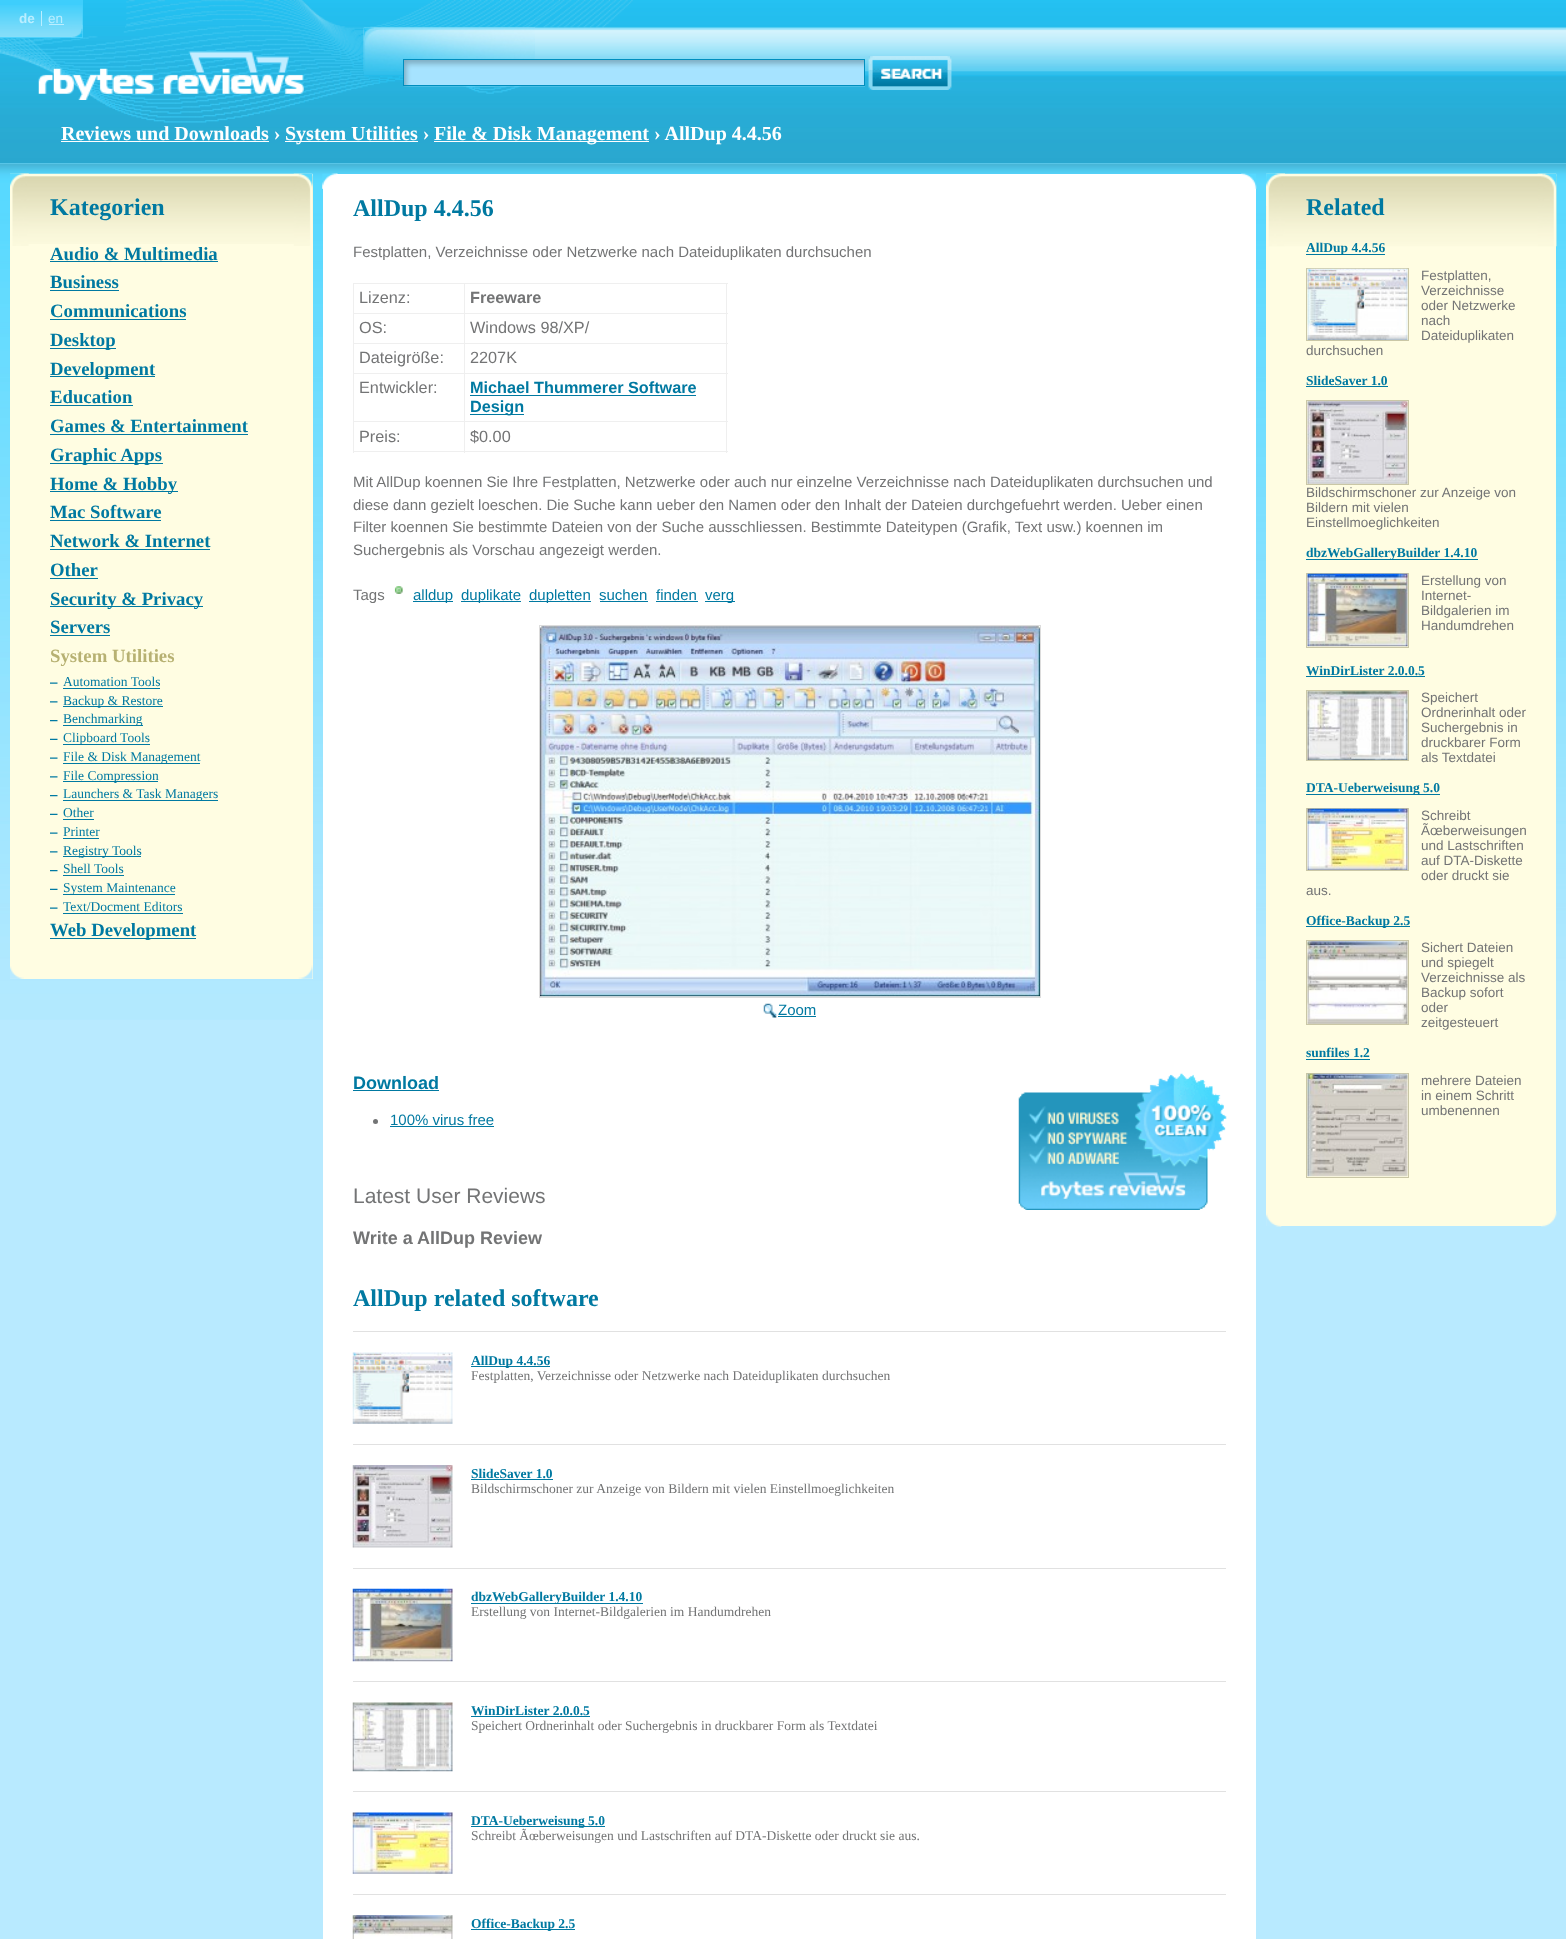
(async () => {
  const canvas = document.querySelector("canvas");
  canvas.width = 1566;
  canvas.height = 1939;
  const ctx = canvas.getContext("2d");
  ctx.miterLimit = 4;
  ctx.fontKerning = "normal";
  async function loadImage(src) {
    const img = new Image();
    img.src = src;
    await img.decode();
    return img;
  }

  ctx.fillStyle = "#ffffff";
  ctx.fillRect(0, 0, 1566, 1939);
  ctx.drawImage(await loadImage("img/1.png"), 0, 0, 1566, 164);
  ctx.drawImage(await loadImage("img/2.png"), 0, 0, 633, 123);
  ctx.fillStyle = "#3ecefc";
  ctx.fillRect(0, 0, 83, 38);
  ctx.drawImage(await loadImage("img/3.png"), 0, 5, 83, 33);
  ctx.drawImage(await loadImage("img/4.png"), 71, 25, 12, 13);
  ctx.fillStyle = "#baeeff";
  ctx.fillRect(41, 11, 1, 15);
  ctx.fillRect(49, 24, 15, 1);
  ctx.drawImage(await loadImage("img/5.png"), 38, 51, 266, 49);
  ctx.drawImage(await loadImage("img/6.png"), 363, 27, 1203, 50);
  ctx.drawImage(await loadImage("img/7.png"), 363, 27, 172, 45);
  ctx.drawImage(await loadImage("img/8.png"), 403, 60, 462, 27);
  ctx.strokeStyle = "#008ebe";
  ctx.strokeRect(403.5, 59.5, 461, 26);
  ctx.drawImage(await loadImage("img/9.png"), 868, 56, 84, 34);
  ctx.drawImage(await loadImage("img/10.png"), 868, 56, 84, 32);
  for (const [x, y, w, h, color] of [
    [61, 141, 208, 1, "#ffffff"],
    [285, 141, 133, 1, "#ffffff"],
    [434, 141, 215, 1, "#ffffff"],
    [0, 1020, 1566, 919, "#b8eaff"],
  ]) {
    ctx.fillStyle = color;
    ctx.fillRect(x, y, w, h);
  }
  ctx.drawImage(await loadImage("img/11.png"), 0, 163, 1566, 857);
  ctx.fillStyle = "#fffde2";
  ctx.fillRect(10, 174, 303, 805);
  ctx.drawImage(await loadImage("img/12.png"), 10, 173, 303, 71);
  ctx.drawImage(await loadImage("img/13.png"), 10, 173, 303, 73);
  ctx.drawImage(await loadImage("img/14.png"), 10, 173, 19, 1);
  for (const [x, y, w, h, color] of [
    [50, 261, 168, 1, "#0079a1"],
    [50, 290, 69, 1, "#0079a1"],
    [50, 319, 136, 1, "#0079a1"],
    [50, 348, 66, 1, "#0079a1"],
    [50, 376, 105, 1, "#0079a1"],
    [50, 405, 83, 1, "#0079a1"],
    [50, 434, 198, 1, "#0079a1"],
    [50, 463, 113, 1, "#0079a1"],
    [50, 491, 128, 1, "#0079a1"],
    [50, 520, 111, 1, "#0079a1"],
    [50, 549, 160, 1, "#0079a1"],
    [50, 578, 48, 1, "#0079a1"],
    [50, 606, 153, 1, "#0079a1"],
    [50, 635, 60, 1, "#0079a1"],
  ]) {
    ctx.fillStyle = color;
    ctx.fillRect(x, y, w, h);
  }
  ctx.drawImage(await loadImage("img/15.png"), 50, 682, 8, 2);
  ctx.fillStyle = "#007aa2";
  ctx.fillRect(63, 688, 97, 1);
  ctx.drawImage(await loadImage("img/16.png"), 50, 701, 8, 2);
  ctx.fillRect(63, 706, 100, 1);
  ctx.drawImage(await loadImage("img/17.png"), 50, 720, 8, 2);
  ctx.fillRect(63, 725, 80, 1);
  ctx.drawImage(await loadImage("img/18.png"), 50, 738, 8, 2);
  ctx.fillRect(63, 744, 87, 1);
  ctx.drawImage(await loadImage("img/15.png"), 50, 757, 8, 2);
  ctx.fillRect(63, 763, 137, 1);
  ctx.drawImage(await loadImage("img/16.png"), 50, 776, 8, 2);
  ctx.fillRect(63, 781, 95, 1);
  ctx.drawImage(await loadImage("img/17.png"), 50, 795, 8, 2);
  ctx.fillRect(63, 800, 155, 1);
  ctx.drawImage(await loadImage("img/18.png"), 50, 813, 8, 2);
  ctx.fillRect(63, 819, 31, 1);
  ctx.drawImage(await loadImage("img/15.png"), 50, 832, 8, 2);
  ctx.fillRect(63, 838, 36, 1);
  ctx.drawImage(await loadImage("img/16.png"), 50, 851, 8, 2);
  ctx.fillRect(63, 856, 78, 1);
  ctx.drawImage(await loadImage("img/17.png"), 50, 870, 8, 2);
  ctx.fillRect(63, 875, 61, 1);
  ctx.drawImage(await loadImage("img/18.png"), 50, 888, 8, 2);
  ctx.fillRect(63, 894, 112, 1);
  ctx.drawImage(await loadImage("img/15.png"), 50, 907, 8, 2);
  ctx.fillRect(63, 913, 120, 1);
  ctx.fillStyle = "#0079a1";
  ctx.fillRect(50, 938, 146, 1);
  ctx.drawImage(await loadImage("img/19.png"), 10, 965, 303, 14);
  ctx.drawImage(await loadImage("img/20.png"), 10, 978, 12, 1);
  ctx.fillStyle = "#ffffff";
  ctx.fillRect(323, 174, 933, 1765);
  ctx.drawImage(await loadImage("img/21.png"), 322, 173, 935, 16);
  ctx.drawImage(await loadImage("img/22.png"), 322, 173, 16, 16);
  for (const [x, y, w, h, color] of [
    [464, 283, 264, 1, "#efefef"],
    [464, 313, 264, 1, "#efefef"],
    [464, 343, 264, 1, "#efefef"],
    [464, 373, 264, 1, "#efefef"],
    [464, 421, 264, 1, "#efefef"],
    [726, 421, 1, 32, "#efefef"],
    [464, 451, 264, 1, "#efefef"],
    [464, 421, 1, 32, "#efefef"],
    [353, 421, 112, 1, "#efefef"],
    [464, 373, 1, 50, "#efefef"],
    [353, 373, 112, 1, "#efefef"],
    [464, 343, 1, 31, "#efefef"],
    [353, 343, 112, 1, "#efefef"],
    [464, 313, 1, 31, "#efefef"],
    [353, 313, 112, 1, "#efefef"],
    [464, 283, 1, 31, "#efefef"],
    [353, 283, 112, 1, "#efefef"],
    [353, 451, 112, 1, "#efefef"],
    [353, 421, 1, 32, "#efefef"],
    [353, 373, 1, 50, "#efefef"],
    [353, 343, 1, 31, "#efefef"],
    [353, 313, 1, 31, "#efefef"],
    [353, 283, 1, 31, "#efefef"],
    [726, 373, 1, 50, "#efefef"],
    [726, 343, 1, 31, "#efefef"],
    [726, 313, 1, 31, "#efefef"],
    [726, 283, 1, 31, "#efefef"],
    [470, 395, 226, 1, "#0079a1"],
    [470, 414, 54, 1, "#0079a1"],
  ]) {
    ctx.fillStyle = color;
    ctx.fillRect(x, y, w, h);
  }
  ctx.drawImage(await loadImage("img/23.png"), 394, 586, 9, 8);
  for (const [x, y, w, h, color] of [
    [413, 601, 40, 1, "#0079a1"],
    [461, 601, 60, 1, "#0079a1"],
    [529, 601, 62, 1, "#0079a1"],
    [600, 601, 48, 1, "#0079a1"],
    [656, 601, 42, 1, "#0079a1"],
    [705, 601, 30, 1, "#0079a1"],
  ]) {
    ctx.fillStyle = color;
    ctx.fillRect(x, y, w, h);
  }
  ctx.strokeStyle = "#dcdcdc";
  ctx.strokeRect(539.5, 625.5, 501, 372);
  ctx.drawImage(await loadImage("img/24.png"), 540, 626, 500, 371);
  ctx.drawImage(await loadImage("img/25.png"), 763, 1003, 14, 15);
  ctx.fillRect(778, 1016, 38, 1);
  ctx.fillRect(353, 1090, 86, 1);
  ctx.drawImage(await loadImage("img/26.png"), 1018, 1073, 209, 137);
  ctx.fillStyle = "#737475";
  ctx.beginPath();
  ctx.arc(375.5, 1121.5, 2.5, 0, Math.PI * 2);
  ctx.fill();
  ctx.fillStyle = "#0079a1";
  ctx.fillRect(390, 1126, 104, 1);
  ctx.fillStyle = "#e1e1e1";
  ctx.fillRect(353, 1331, 873, 1);
  ctx.drawImage(await loadImage("img/27.png"), 352, 1352, 101, 72);
  ctx.fillStyle = "#0079a1";
  ctx.fillRect(471, 1366, 79, 1);
  ctx.fillStyle = "#e1e1e1";
  ctx.fillRect(353, 1444, 873, 1);
  ctx.drawImage(await loadImage("img/28.png"), 352, 1465, 101, 83);
  ctx.fillStyle = "#0079a1";
  ctx.fillRect(471, 1479, 82, 1);
  ctx.fillStyle = "#e1e1e1";
  ctx.fillRect(353, 1568, 873, 1);
  ctx.drawImage(await loadImage("img/29.png"), 352, 1588, 101, 74);
  ctx.fillStyle = "#0079a1";
  ctx.fillRect(471, 1603, 172, 1);
  ctx.fillStyle = "#e1e1e1";
  ctx.fillRect(353, 1681, 873, 1);
  ctx.drawImage(await loadImage("img/30.png"), 352, 1702, 101, 70);
  ctx.fillStyle = "#0079a1";
  ctx.fillRect(471, 1716, 119, 1);
  ctx.fillStyle = "#e1e1e1";
  ctx.fillRect(353, 1791, 873, 1);
  ctx.drawImage(await loadImage("img/31.png"), 352, 1812, 101, 62);
  ctx.fillStyle = "#0079a1";
  ctx.fillRect(471, 1826, 134, 1);
  ctx.fillStyle = "#e1e1e1";
  ctx.fillRect(353, 1894, 873, 1);
  ctx.drawImage(await loadImage("img/32.png"), 352, 1915, 101, 24);
  ctx.fillStyle = "#0079a1";
  ctx.fillRect(471, 1929, 104, 1);
  ctx.fillStyle = "#fffde2";
  ctx.fillRect(1266, 174, 290, 1052);
  ctx.drawImage(await loadImage("img/33.png"), 1266, 173, 291, 74);
  ctx.drawImage(await loadImage("img/34.png"), 1266, 173, 291, 74);
  ctx.drawImage(await loadImage("img/35.png"), 1266, 173, 19, 33);
  ctx.fillStyle = "#0079a1";
  ctx.fillRect(1306, 254, 79, 1);
  ctx.strokeStyle = "#cac7a6";
  ctx.strokeRect(1306.5, 268.5, 102, 72);
  ctx.drawImage(await loadImage("img/36.png"), 1307, 268, 101, 72);
  ctx.fillRect(1306, 386, 82, 1);
  ctx.strokeRect(1306.5, 400.5, 102, 84);
  ctx.drawImage(await loadImage("img/37.png"), 1307, 401, 101, 83);
  ctx.fillRect(1306, 559, 172, 1);
  ctx.strokeRect(1306.5, 573.5, 102, 74);
  ctx.drawImage(await loadImage("img/38.png"), 1307, 573, 101, 74);
  ctx.fillRect(1306, 676, 119, 1);
  ctx.strokeRect(1306.5, 690.5, 102, 70);
  ctx.drawImage(await loadImage("img/39.png"), 1307, 691, 101, 69);
  ctx.fillRect(1306, 794, 134, 1);
  ctx.strokeRect(1306.5, 808.5, 102, 62);
  ctx.drawImage(await loadImage("img/40.png"), 1307, 808, 101, 62);
  ctx.fillRect(1306, 926, 104, 1);
  ctx.strokeRect(1306.5, 940.5, 102, 84);
  ctx.drawImage(await loadImage("img/41.png"), 1307, 941, 101, 83);
  ctx.fillRect(1306, 1059, 64, 1);
  ctx.strokeRect(1306.5, 1073.5, 102, 104);
  ctx.drawImage(await loadImage("img/42.png"), 1307, 1073, 101, 104);
  ctx.drawImage(await loadImage("img/43.png"), 1266, 1211, 291, 16);
  ctx.drawImage(await loadImage("img/44.png"), 1266, 1215, 16, 12);
  ctx.font = "bold 13.5px Liberation Sans";
  ctx.fillStyle = "#baeeff";
  ctx.fillText("de", 19, 23);
  ctx.font = "13.5px Liberation Sans";
  ctx.fillText("en", 48, 23);
  ctx.font = "bold 20px Liberation Serif";
  ctx.fillStyle = "#ffffff";
  for (const [text, x, y] of [
    ["Reviews und Downloads ›", 61, 140],
    ["System Utilities ›", 285, 140],
    ["File & Disk Management › AllDup 4.4.56", 434, 140],
  ]) {
    ctx.fillText(text, x, y);
  }
  ctx.font = "bold 24px Liberation Serif";
  ctx.fillStyle = "#0079a1";
  ctx.fillText("Kategorien", 50, 215);
  ctx.font = "bold 18.75px Liberation Serif";
  for (const [text, x, y] of [
    ["Audio & Multimedia", 50, 260],
    ["Business", 50, 288],
    ["Communications", 50, 317],
    ["Desktop", 50, 346],
    ["Development", 50, 375],
    ["Education", 50, 403],
    ["Games & Entertainment", 50, 432],
    ["Graphic Apps", 50, 461],
    ["Home & Hobby", 50, 490],
    ["Mac Software", 50, 518],
    ["Network & Internet", 50, 547],
    ["Other", 50, 576],
    ["Security & Privacy", 50, 605],
    ["Servers", 50, 633],
  ]) {
    ctx.fillText(text, x, y);
  }
  ctx.fillStyle = "#b7b172";
  ctx.fillText("System Utilities", 50, 662);
  ctx.font = "13.5px Liberation Serif";
  ctx.fillStyle = "#0079a1";
  for (const [text, x, y] of [
    ["Automation Tools", 63, 686],
    ["Backup & Restore", 63, 705],
    ["Benchmarking", 63, 723],
    ["Clipboard Tools", 63, 742],
    ["File & Disk Management", 63, 761],
    ["File Compression", 63, 780],
    ["Launchers & Task Managers", 63, 798],
    ["Other", 63, 817],
    ["Printer", 63, 836],
    ["Registry Tools", 63, 855],
    ["Shell Tools", 63, 873],
    ["System Maintenance", 63, 892],
    ["Text/Docment Editors", 63, 911],
  ]) {
    ctx.fillText(text, x, y);
  }
  ctx.font = "bold 18.75px Liberation Serif";
  ctx.fillText("Web Development", 50, 936);
  ctx.font = "bold 24px Liberation Serif";
  ctx.fillText("AllDup 4.4.56", 353, 216);
  ctx.font = "15px Liberation Sans";
  ctx.fillStyle = "#737475";
  ctx.fillText("Festplatten, Verzeichnisse oder Netzwerke nach Dateiduplikaten durchsuchen", 353, 257);
  ctx.font = "16.25px Liberation Sans";
  ctx.fillText("Lizenz:", 359, 303);
  ctx.font = "bold 16.25px Liberation Sans";
  ctx.fillText("Freeware", 470, 303);
  ctx.font = "16.25px Liberation Sans";
  for (const [text, x, y] of [
    ["OS:", 359, 333],
    ["Windows 98/XP/", 470, 333],
    ["Dateigröße:", 359, 363],
    ["2207K", 470, 363],
    ["Entwickler:", 359, 393],
  ]) {
    ctx.fillText(text, x, y);
  }
  ctx.font = "bold 16.25px Liberation Sans";
  ctx.fillStyle = "#0079a1";
  ctx.fillText("Michael Thummerer Software", 470, 393);
  ctx.fillText("Design", 470, 412);
  ctx.font = "16.25px Liberation Sans";
  ctx.fillStyle = "#737475";
  ctx.fillText("Preis:", 359, 442);
  ctx.fillText("$0.00", 470, 442);
  ctx.font = "15px Liberation Sans";
  for (const [text, x, y] of [
    ["Mit AllDup koennen Sie Ihre Festplatten, Netzwerke oder auch nur einzelne Verzeichnisse nach Dateiduplikaten durchsuchen und", 353, 487],
    ["diese dann gezielt loeschen. Die Suche kann ueber den Namen oder den Inhalt der Dateien durchgefuehrt werden. Ueber einen", 353, 510],
    ["Filter koennen Sie bestimmte Dateien von der Suche ausschliessen. Bestimmte Dateitypen (Grafik, Text usw.) koennen im", 353, 532],
    ["Suchergebnis als Vorschau angezeigt werden.", 353, 555],
    ["Tags", 353, 600],
  ]) {
    ctx.fillText(text, x, y);
  }
  ctx.fillStyle = "#0079a1";
  for (const [text, x, y] of [
    ["alldup", 413, 600],
    ["duplikate", 461, 600],
    ["dupletten", 529, 600],
    ["suchen", 599, 600],
    ["finden", 656, 600],
    ["verg", 705, 600],
    ["Zoom", 778, 1015],
  ]) {
    ctx.fillText(text, x, y);
  }
  ctx.font = "bold 18px Liberation Sans";
  ctx.fillText("Download", 353, 1089);
  ctx.font = "15px Liberation Sans";
  ctx.fillText("100% virus free", 390, 1125);
  ctx.font = "21px Liberation Sans";
  ctx.fillStyle = "#737475";
  ctx.fillText("Latest User Reviews", 353, 1203);
  ctx.font = "bold 18px Liberation Sans";
  ctx.fillText("Write a AllDup Review", 353, 1244);
  ctx.font = "bold 24px Liberation Serif";
  ctx.fillStyle = "#0079a1";
  ctx.fillText("AllDup related software", 353, 1306);
  ctx.font = "bold 13.5px Liberation Serif";
  ctx.fillText("AllDup 4.4.56", 471, 1365);
  ctx.font = "13.5px Liberation Serif";
  ctx.fillStyle = "#737475";
  ctx.fillText("Festplatten, Verzeichnisse oder Netzwerke nach Dateiduplikaten durchsuchen", 471, 1380);
  ctx.font = "bold 13.5px Liberation Serif";
  ctx.fillStyle = "#0079a1";
  ctx.fillText("SlideSaver 1.0", 471, 1478);
  ctx.font = "13.5px Liberation Serif";
  ctx.fillStyle = "#737475";
  ctx.fillText("Bildschirmschoner zur Anzeige von Bildern mit vielen Einstellmoeglichkeiten", 471, 1493);
  ctx.font = "bold 13.5px Liberation Serif";
  ctx.fillStyle = "#0079a1";
  ctx.fillText("dbzWebGalleryBuilder 1.4.10", 471, 1601);
  ctx.font = "13.5px Liberation Serif";
  ctx.fillStyle = "#737475";
  ctx.fillText("Erstellung von Internet-Bildgalerien im Handumdrehen", 471, 1616);
  ctx.font = "bold 13.5px Liberation Serif";
  ctx.fillStyle = "#0079a1";
  ctx.fillText("WinDirLister 2.0.0.5", 471, 1715);
  ctx.font = "13.5px Liberation Serif";
  ctx.fillStyle = "#737475";
  ctx.fillText("Speichert Ordnerinhalt oder Suchergebnis in druckbarer Form als Textdatei", 471, 1730);
  ctx.font = "bold 13.5px Liberation Serif";
  ctx.fillStyle = "#0079a1";
  ctx.fillText("DTA-Ueberweisung 5.0", 471, 1825);
  ctx.font = "13.5px Liberation Serif";
  ctx.fillStyle = "#737475";
  ctx.fillText("Schreibt Ãœberweisungen und Lastschriften auf DTA-Diskette oder druckt sie aus.", 471, 1840);
  ctx.font = "bold 13.5px Liberation Serif";
  ctx.fillStyle = "#0079a1";
  ctx.fillText("Office-Backup 2.5", 471, 1928);
  ctx.font = "bold 24px Liberation Serif";
  ctx.fillText("Related", 1306, 215);
  ctx.font = "bold 13.5px Liberation Serif";
  ctx.fillText("AllDup 4.4.56", 1306, 252);
  ctx.font = "13.5px Liberation Sans";
  ctx.fillStyle = "#737475";
  for (const [text, x, y] of [
    ["Festplatten,", 1421, 280],
    ["Verzeichnisse", 1421, 295],
    ["oder Netzwerke", 1421, 310],
    ["nach", 1421, 325],
    ["Dateiduplikaten", 1421, 340],
    ["durchsuchen", 1306, 355],
  ]) {
    ctx.fillText(text, x, y);
  }
  ctx.font = "bold 13.5px Liberation Serif";
  ctx.fillStyle = "#0079a1";
  ctx.fillText("SlideSaver 1.0", 1306, 385);
  ctx.font = "13.5px Liberation Sans";
  ctx.fillStyle = "#737475";
  for (const [text, x, y] of [
    ["Bildschirmschoner zur Anzeige von", 1306, 497],
    ["Bildern mit vielen", 1306, 512],
    ["Einstellmoeglichkeiten", 1306, 527],
  ]) {
    ctx.fillText(text, x, y);
  }
  ctx.font = "bold 13.5px Liberation Serif";
  ctx.fillStyle = "#0079a1";
  ctx.fillText("dbzWebGalleryBuilder 1.4.10", 1306, 557);
  ctx.font = "13.5px Liberation Sans";
  ctx.fillStyle = "#737475";
  for (const [text, x, y] of [
    ["Erstellung von", 1421, 585],
    ["Internet-", 1421, 600],
    ["Bildgalerien im", 1421, 615],
    ["Handumdrehen", 1421, 630],
  ]) {
    ctx.fillText(text, x, y);
  }
  ctx.font = "bold 13.5px Liberation Serif";
  ctx.fillStyle = "#0079a1";
  ctx.fillText("WinDirLister 2.0.0.5", 1306, 675);
  ctx.font = "13.5px Liberation Sans";
  ctx.fillStyle = "#737475";
  for (const [text, x, y] of [
    ["Speichert", 1421, 702],
    ["Ordnerinhalt oder", 1421, 717],
    ["Suchergebnis in", 1421, 732],
    ["druckbarer Form", 1421, 747],
    ["als Textdatei", 1421, 762],
  ]) {
    ctx.fillText(text, x, y);
  }
  ctx.font = "bold 13.5px Liberation Serif";
  ctx.fillStyle = "#0079a1";
  ctx.fillText("DTA-Ueberweisung 5.0", 1306, 792);
  ctx.font = "13.5px Liberation Sans";
  ctx.fillStyle = "#737475";
  for (const [text, x, y] of [
    ["Schreibt", 1421, 820],
    ["Ãœberweisungen", 1421, 835],
    ["und Lastschriften", 1421, 850],
    ["auf DTA-Diskette", 1421, 865],
    ["oder druckt sie", 1421, 880],
    ["aus.", 1306, 895],
  ]) {
    ctx.fillText(text, x, y);
  }
  ctx.font = "bold 13.5px Liberation Serif";
  ctx.fillStyle = "#0079a1";
  ctx.fillText("Office-Backup 2.5", 1306, 925);
  ctx.font = "13.5px Liberation Sans";
  ctx.fillStyle = "#737475";
  for (const [text, x, y] of [
    ["Sichert Dateien", 1421, 952],
    ["und spiegelt", 1421, 967],
    ["Verzeichnisse als", 1421, 982],
    ["Backup sofort", 1421, 997],
    ["oder", 1421, 1012],
    ["zeitgesteuert", 1421, 1027],
  ]) {
    ctx.fillText(text, x, y);
  }
  ctx.font = "bold 13.5px Liberation Serif";
  ctx.fillStyle = "#0079a1";
  ctx.fillText("sunfiles 1.2", 1306, 1057);
  ctx.font = "13.5px Liberation Sans";
  ctx.fillStyle = "#737475";
  for (const [text, x, y] of [
    ["mehrere Dateien", 1421, 1085],
    ["in einem Schritt", 1421, 1100],
    ["umbenennen", 1421, 1115],
  ]) {
    ctx.fillText(text, x, y);
  }
})();
